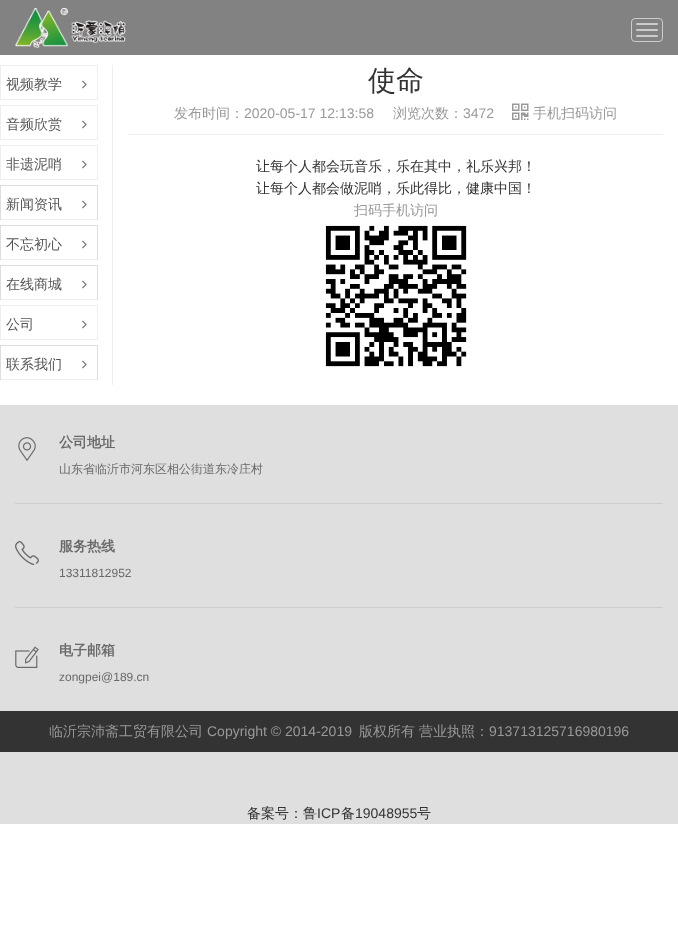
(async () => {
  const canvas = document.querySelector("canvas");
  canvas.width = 678;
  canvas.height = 927;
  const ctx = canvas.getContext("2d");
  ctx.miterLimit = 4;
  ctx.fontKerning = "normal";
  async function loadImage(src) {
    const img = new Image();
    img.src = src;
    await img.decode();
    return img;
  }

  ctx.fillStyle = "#ffffff";
  ctx.fillRect(0, 0, 678, 927);
  ctx.fillStyle = "#828282";
  ctx.fillRect(0, 0, 678, 55);
  ctx.drawImage(await loadImage("img/1.png"), 15, 8, 111, 40);
  ctx.beginPath();
  ctx.roundRect(631.5, 18.5, 31, 23, 3.5);
  ctx.strokeStyle = "#cccccc";
  ctx.stroke();
  ctx.fillStyle = "#cccccc";
  ctx.beginPath();
  ctx.roundRect(636, 23, 22, 2, 1);
  ctx.fill();
  ctx.beginPath();
  ctx.roundRect(636, 29, 22, 2, 1);
  ctx.fill();
  ctx.beginPath();
  ctx.roundRect(636, 35, 22, 2, 1);
  ctx.fill();
  for (const [x, y, w, h, color] of [
    [0, 65, 98, 1, "#eeeeee"],
    [97, 65, 1, 35, "#eeeeee"],
    [0, 65, 1, 35, "#eeeeee"],
    [1, 99, 96, 1, "#eeeeee"],
  ]) {
    ctx.fillStyle = color;
    ctx.fillRect(x, y, w, h);
  }
  ctx.drawImage(await loadImage("img/2.png"), 82, 80, 5, 9);
  for (const [x, y, w, h, color] of [
    [0, 105, 98, 1, "#eeeeee"],
    [97, 105, 1, 35, "#eeeeee"],
    [0, 105, 1, 35, "#eeeeee"],
    [1, 139, 96, 1, "#eeeeee"],
  ]) {
    ctx.fillStyle = color;
    ctx.fillRect(x, y, w, h);
  }
  ctx.drawImage(await loadImage("img/2.png"), 82, 120, 5, 9);
  for (const [x, y, w, h, color] of [
    [0, 145, 98, 1, "#eeeeee"],
    [97, 145, 1, 35, "#eeeeee"],
    [0, 145, 1, 35, "#eeeeee"],
    [1, 179, 96, 1, "#eeeeee"],
  ]) {
    ctx.fillStyle = color;
    ctx.fillRect(x, y, w, h);
  }
  ctx.drawImage(await loadImage("img/2.png"), 82, 160, 5, 9);
  for (const [x, y, w, h, color] of [
    [0, 185, 98, 1, "#dedede"],
    [97, 185, 1, 35, "#dedede"],
    [0, 185, 1, 35, "#dedede"],
    [1, 219, 96, 1, "#eeeeee"],
  ]) {
    ctx.fillStyle = color;
    ctx.fillRect(x, y, w, h);
  }
  ctx.drawImage(await loadImage("img/2.png"), 82, 200, 5, 9);
  for (const [x, y, w, h, color] of [
    [0, 225, 98, 1, "#dedede"],
    [97, 225, 1, 35, "#dedede"],
    [0, 225, 1, 35, "#dedede"],
    [1, 259, 96, 1, "#eeeeee"],
  ]) {
    ctx.fillStyle = color;
    ctx.fillRect(x, y, w, h);
  }
  ctx.drawImage(await loadImage("img/2.png"), 82, 240, 5, 9);
  for (const [x, y, w, h, color] of [
    [0, 265, 98, 1, "#dedede"],
    [97, 265, 1, 35, "#dedede"],
    [0, 265, 1, 35, "#dedede"],
    [1, 299, 96, 1, "#eeeeee"],
  ]) {
    ctx.fillStyle = color;
    ctx.fillRect(x, y, w, h);
  }
  ctx.drawImage(await loadImage("img/2.png"), 82, 280, 5, 9);
  for (const [x, y, w, h, color] of [
    [0, 305, 98, 1, "#eeeeee"],
    [97, 305, 1, 35, "#eeeeee"],
    [0, 305, 1, 35, "#eeeeee"],
    [1, 339, 96, 1, "#eeeeee"],
  ]) {
    ctx.fillStyle = color;
    ctx.fillRect(x, y, w, h);
  }
  ctx.drawImage(await loadImage("img/2.png"), 82, 320, 5, 9);
  for (const [x, y, w, h, color] of [
    [0, 345, 98, 1, "#dedede"],
    [97, 345, 1, 35, "#dedede"],
    [0, 345, 1, 35, "#dedede"],
    [1, 379, 96, 1, "#eeeeee"],
  ]) {
    ctx.fillStyle = color;
    ctx.fillRect(x, y, w, h);
  }
  ctx.drawImage(await loadImage("img/2.png"), 82, 360, 5, 9);
  ctx.fillRect(112, 65, 1, 320);
  ctx.drawImage(await loadImage("img/3.png"), 512, 103, 17, 17);
  ctx.fillRect(128, 134, 535, 1);
  ctx.drawImage(await loadImage("img/4.png"), 325, 225, 142, 142);
  ctx.fillStyle = "#dfdfdf";
  ctx.fillRect(0, 405, 678, 419);
  ctx.fillStyle = "#cccccc";
  ctx.fillRect(15, 503, 648, 1);
  ctx.drawImage(await loadImage("img/5.png"), 18, 437, 18, 24);
  ctx.fillRect(15, 607, 648, 1);
  ctx.drawImage(await loadImage("img/6.png"), 15, 541, 24, 24);
  ctx.drawImage(await loadImage("img/7.png"), 15, 646, 24, 22);
  ctx.fillStyle = "#333333";
  ctx.fillRect(0, 711, 678, 41);
  ctx.font = "500 14px WenQuanYi Zen Hei";
  ctx.fillStyle = "#555555";
  for (const [text, x, y] of [
    ["视频教学", 6, 89],
    ["音频欣赏", 6, 129],
    ["非遗泥哨", 6, 169],
    ["新闻资讯", 6, 209],
    ["不忘初心", 6, 249],
    ["在线商城", 6, 289],
    ["公司", 6, 329],
    ["联系我们", 6, 369],
  ]) {
    ctx.fillText(text, x, y);
  }
  ctx.font = "500 28px WenQuanYi Zen Hei";
  ctx.fillStyle = "#333333";
  ctx.fillText("使命", 368, 90);
  ctx.font = "500 14px WenQuanYi Zen Hei";
  ctx.fillStyle = "#999999";
  ctx.fillText("发布时间：", 174, 118);
  ctx.font = "14px Liberation Sans";
  ctx.fillText("2020-05-17 12:13:58", 244, 118);
  ctx.font = "500 14px WenQuanYi Zen Hei";
  ctx.fillText("浏览次数：", 393, 118);
  ctx.font = "14px Liberation Sans";
  ctx.fillText("3472", 463, 118);
  ctx.font = "500 14px WenQuanYi Zen Hei";
  ctx.fillText("手机扫码访问", 533, 118);
  ctx.fillStyle = "#333333";
  ctx.fillText("让每个人都会玩音乐，乐在其中，礼乐兴邦！", 256, 171);
  ctx.fillText("让每个人都会做泥哨，乐此得比，健康中国！", 256, 193);
  ctx.fillStyle = "#999999";
  ctx.fillText("扫码手机访问", 354, 215);
  ctx.font = "bold 14px WenQuanYi Zen Hei";
  ctx.fillStyle = "#696969";
  ctx.fillText("公司地址", 59, 447);
  ctx.font = "500 12px WenQuanYi Zen Hei";
  ctx.fillText("山东省临沂市河东区相公街道东冷庄村", 59, 473);
  ctx.font = "bold 14px WenQuanYi Zen Hei";
  ctx.fillText("服务热线", 59, 551);
  ctx.font = "12px Liberation Sans";
  ctx.fillText("13311812952", 59, 577);
  ctx.font = "bold 14px WenQuanYi Zen Hei";
  ctx.fillText("电子邮箱", 59, 655);
  ctx.font = "12px Liberation Sans";
  ctx.fillText("zongpei@189.cn", 59, 681);
  ctx.font = "500 14px WenQuanYi Zen Hei";
  ctx.fillStyle = "#999999";
  ctx.fillText("临沂宗沛斋工贸有限公司", 49, 736);
  ctx.font = "14px Liberation Sans";
  ctx.fillText("Copyright © 2014-2019", 207, 736);
  ctx.font = "500 14px WenQuanYi Zen Hei";
  ctx.fillText("版权所有", 359, 736);
  ctx.fillText("营业执照：", 419, 736);
  ctx.font = "14px Liberation Sans";
  ctx.fillText("913713125716980196", 489, 736);
  ctx.font = "500 14px WenQuanYi Zen Hei";
  ctx.fillStyle = "#333333";
  ctx.fillText("备案号：鲁", 247, 818);
  ctx.font = "14px Liberation Sans";
  ctx.fillText("ICP", 317, 818);
  ctx.font = "500 14px WenQuanYi Zen Hei";
  ctx.fillText("备", 341, 818);
  ctx.font = "14px Liberation Sans";
  ctx.fillText("19048955", 355, 818);
  ctx.font = "500 14px WenQuanYi Zen Hei";
  ctx.fillText("号", 417, 818);
})();
